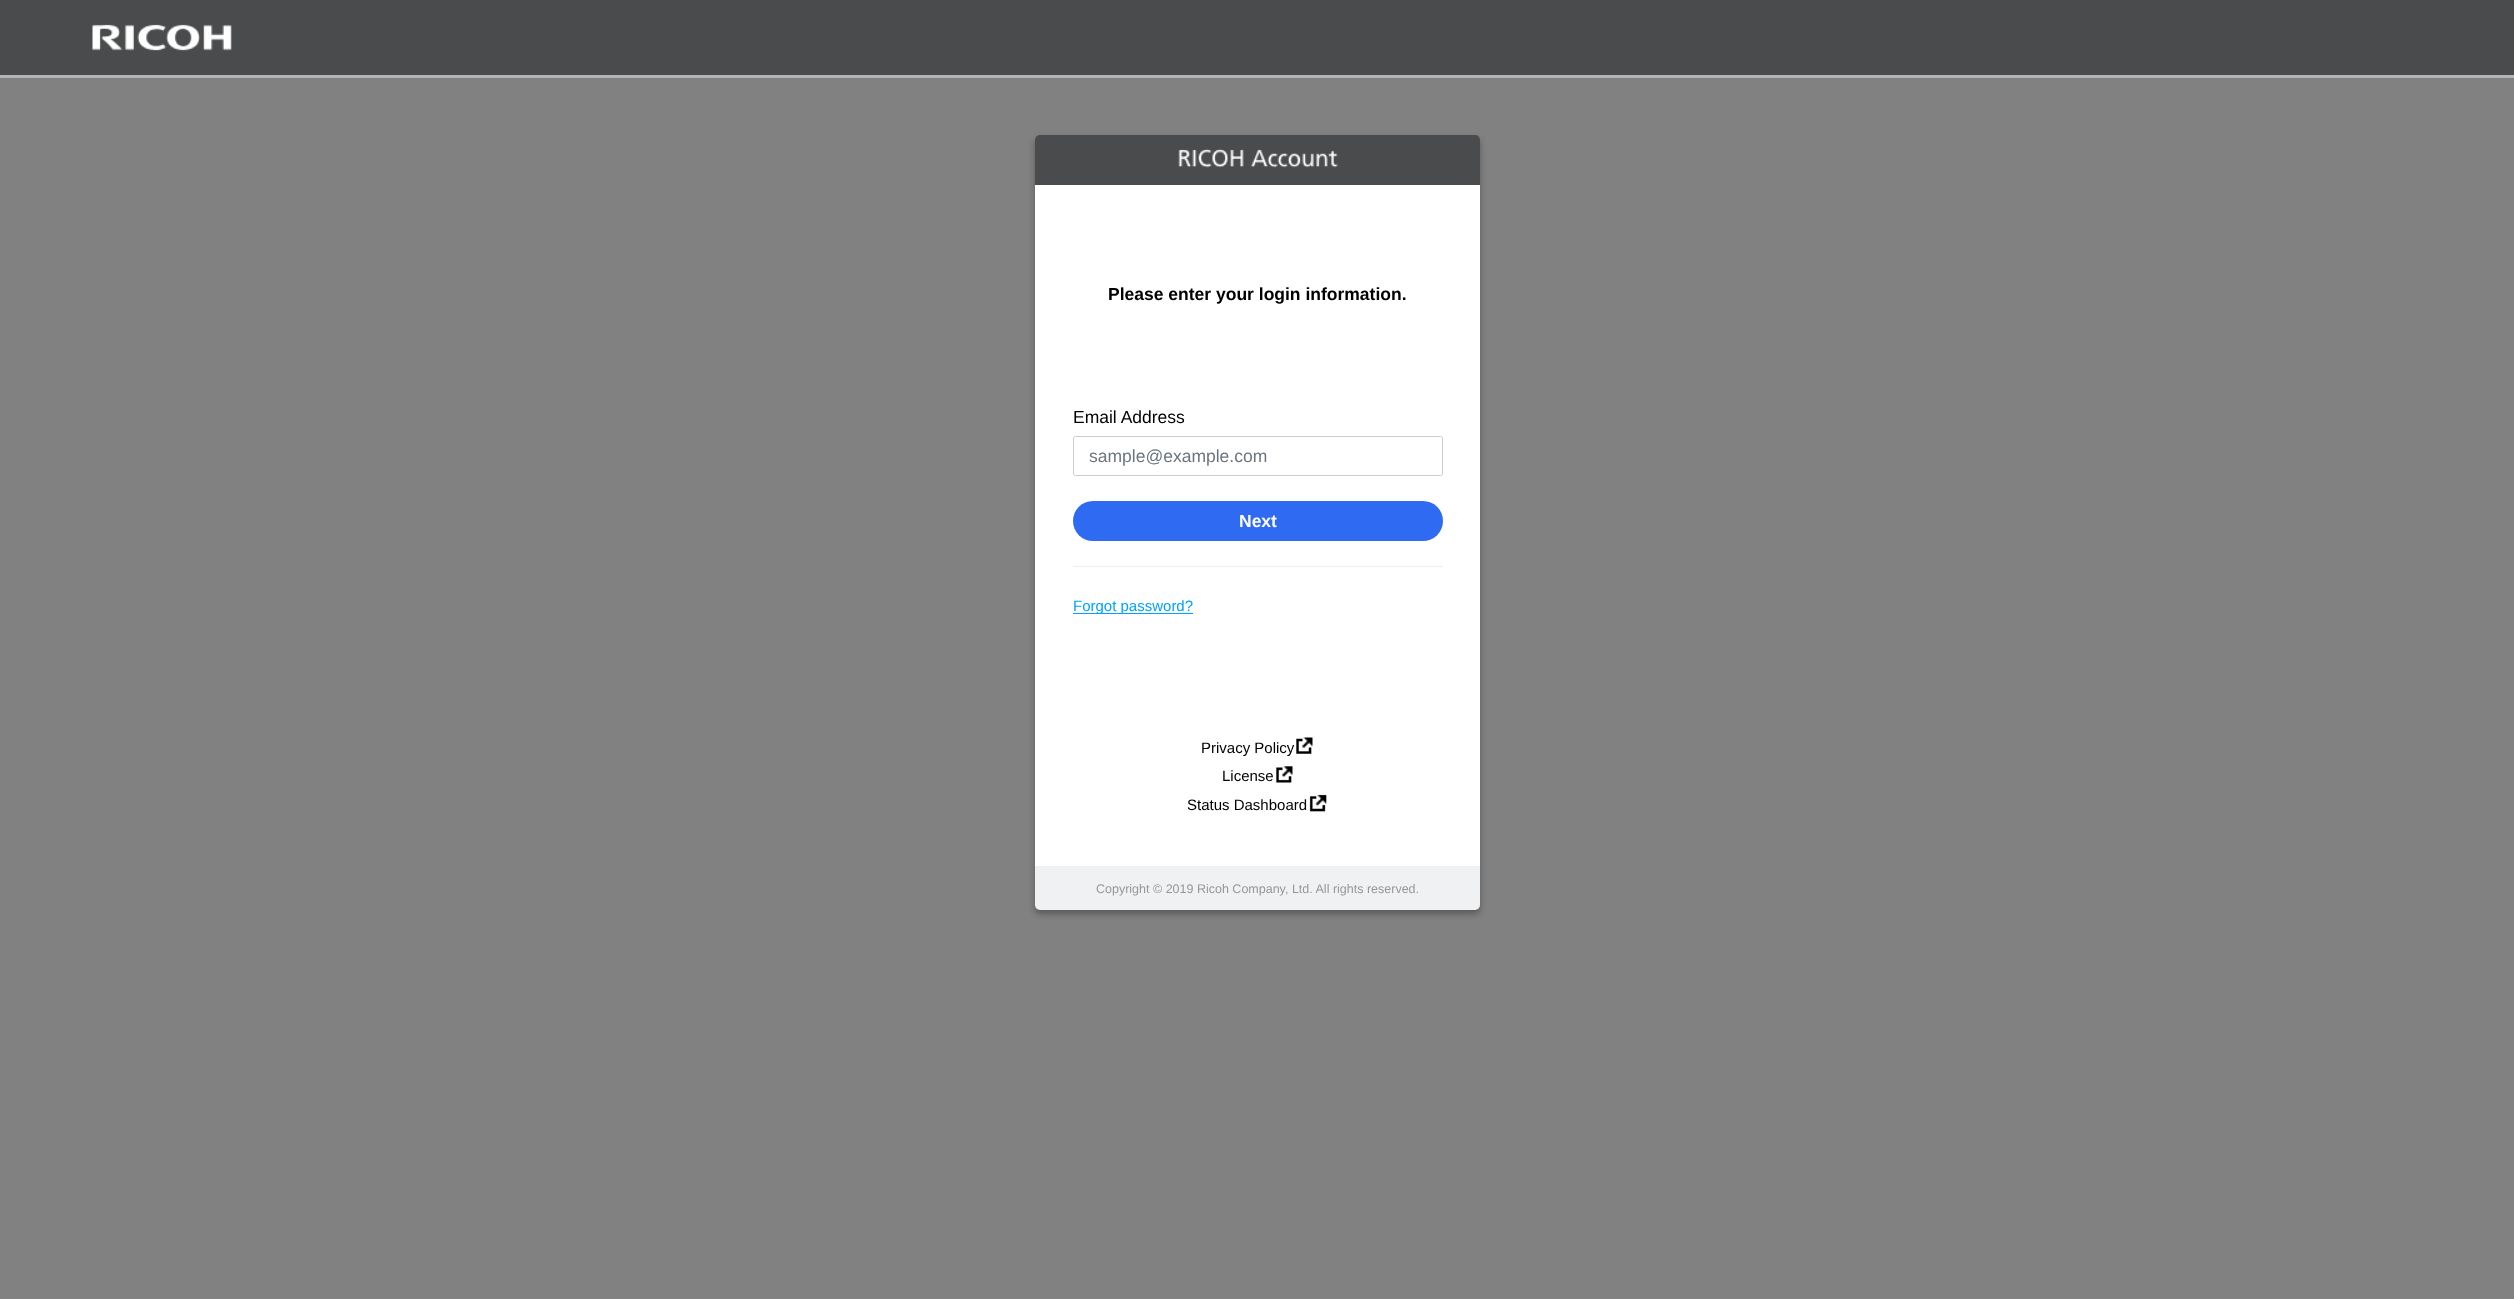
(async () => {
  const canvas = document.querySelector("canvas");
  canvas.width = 2514;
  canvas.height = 1299;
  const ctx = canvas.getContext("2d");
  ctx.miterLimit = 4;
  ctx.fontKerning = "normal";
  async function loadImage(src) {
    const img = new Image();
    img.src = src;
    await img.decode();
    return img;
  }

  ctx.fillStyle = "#818181";
  ctx.fillRect(0, 0, 2514, 1299);
  ctx.fillStyle = "#4a4b4c";
  ctx.fillRect(0, 0, 2514, 75);
  ctx.fillStyle = "#b5b5b5";
  ctx.fillRect(0, 75, 2514, 3);
  ctx.drawImage(await loadImage("img/1.png"), 92, 24, 140, 27);
  ctx.fillStyle = "rgba(0, 0, 0, 0.3)";
  ctx.filter = "blur(3px)";
  ctx.beginPath();
  ctx.roundRect(1035, 139, 445, 775, 5);
  ctx.fill();
  ctx.filter = "none";
  ctx.fillStyle = "#4a4b4c";
  ctx.beginPath();
  ctx.roundRect(1035, 135, 445, 50, [5, 5, 0, 0]);
  ctx.fill();
  ctx.drawImage(await loadImage("img/2.png"), 1178, 148, 160, 20);
  ctx.fillStyle = "#ffffff";
  ctx.fillRect(1035, 185, 445, 681);
  ctx.beginPath();
  ctx.roundRect(1073.5, 436.5, 369, 39, 2);
  ctx.strokeStyle = "#cccccc";
  ctx.stroke();
  ctx.fillStyle = "#2f6bf2";
  ctx.beginPath();
  ctx.roundRect(1073, 501, 370, 40, 20);
  ctx.fill();
  ctx.fillStyle = "#eeeeee";
  ctx.fillRect(1073, 566, 370, 1);
  ctx.fillStyle = "#00a2ff";
  ctx.fillRect(1073, 613, 120, 1);
  ctx.drawImage(await loadImage("img/3.png"), 1296, 737, 17, 17);
  ctx.drawImage(await loadImage("img/4.png"), 1276, 766, 17, 17);
  ctx.drawImage(await loadImage("img/5.png"), 1309, 794, 18, 18);
  ctx.fillStyle = "#f0f1f2";
  ctx.beginPath();
  ctx.roundRect(1035, 866, 445, 44, [0, 0, 5, 5]);
  ctx.fill();
  ctx.font = "bold 17.5px Liberation Sans";
  ctx.fillStyle = "#000000";
  ctx.fillText("Please enter your login information.", 1108, 300);
  ctx.font = "17.5px Liberation Sans";
  ctx.fillText("Email Address", 1073, 423);
  ctx.fillStyle = "#6c757d";
  ctx.fillText("sample@example.com", 1089, 462);
  ctx.font = "bold 17.5px Liberation Sans";
  ctx.fillStyle = "#ffffff";
  ctx.fillText("Next", 1239, 527);
  ctx.font = "15px Liberation Sans";
  ctx.fillStyle = "#00a2ff";
  ctx.fillText("Forgot password?", 1073, 611);
  ctx.fillStyle = "#000000";
  for (const [text, x, y] of [
    ["Privacy Policy", 1201, 753],
    ["License", 1222, 781],
    ["Status Dashboard", 1187, 810],
  ]) {
    ctx.fillText(text, x, y);
  }
  ctx.font = "12.5px Liberation Sans";
  ctx.fillStyle = "#979797";
  ctx.fillText("Copyright © 2019 Ricoh Company, Ltd. All rights reserved.", 1096, 893);
})();
